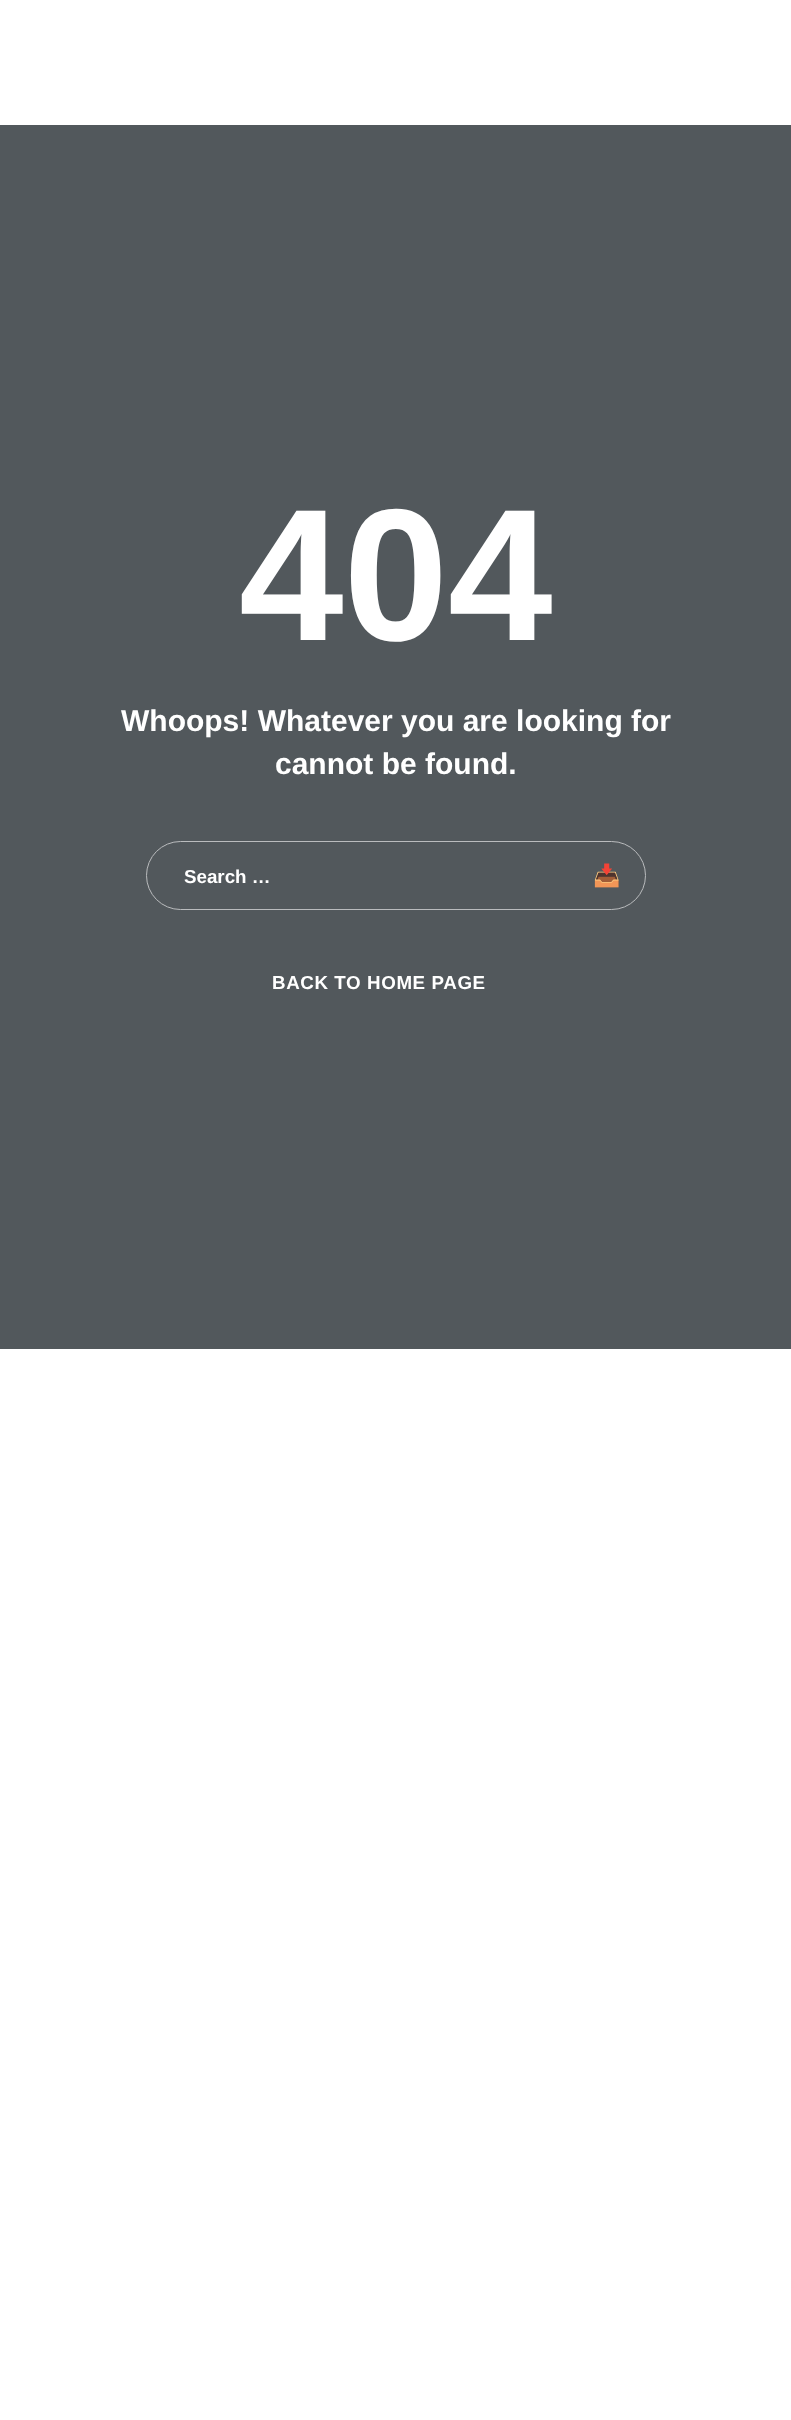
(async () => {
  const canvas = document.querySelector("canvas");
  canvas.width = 791;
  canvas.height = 2420;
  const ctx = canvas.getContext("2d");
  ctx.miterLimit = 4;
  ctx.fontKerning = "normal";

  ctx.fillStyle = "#ffffff";
  ctx.fillRect(0, 0, 791, 2420);
  ctx.fillStyle = "#52585c";
  ctx.fillRect(0, 125, 791, 1224);
  ctx.beginPath();
  ctx.roundRect(146.5, 841.5, 499, 68, 34);
  ctx.strokeStyle = "#babcbe";
  ctx.stroke();
  ctx.font = "bold 188px Liberation Sans";
  ctx.fillStyle = "#ffffff";
  ctx.fillText("404", 239, 640);
  ctx.font = "bold 30px Liberation Sans";
  ctx.fillText("Whoops! Whatever you are looking for", 121, 731);
  ctx.fillText("cannot be found.", 275, 774);
  ctx.font = "bold 18.75px Liberation Sans";
  ctx.fillText("Search …", 184, 883);
  ctx.font = "22px Noto Color Emoji";
  ctx.fillText("📥", 593, 883);
  ctx.letterSpacing = "0.6px";
  ctx.font = "bold 18.75px Liberation Sans";
  ctx.fillText("BACK TO HOME PAGE", 272, 989);
})();
